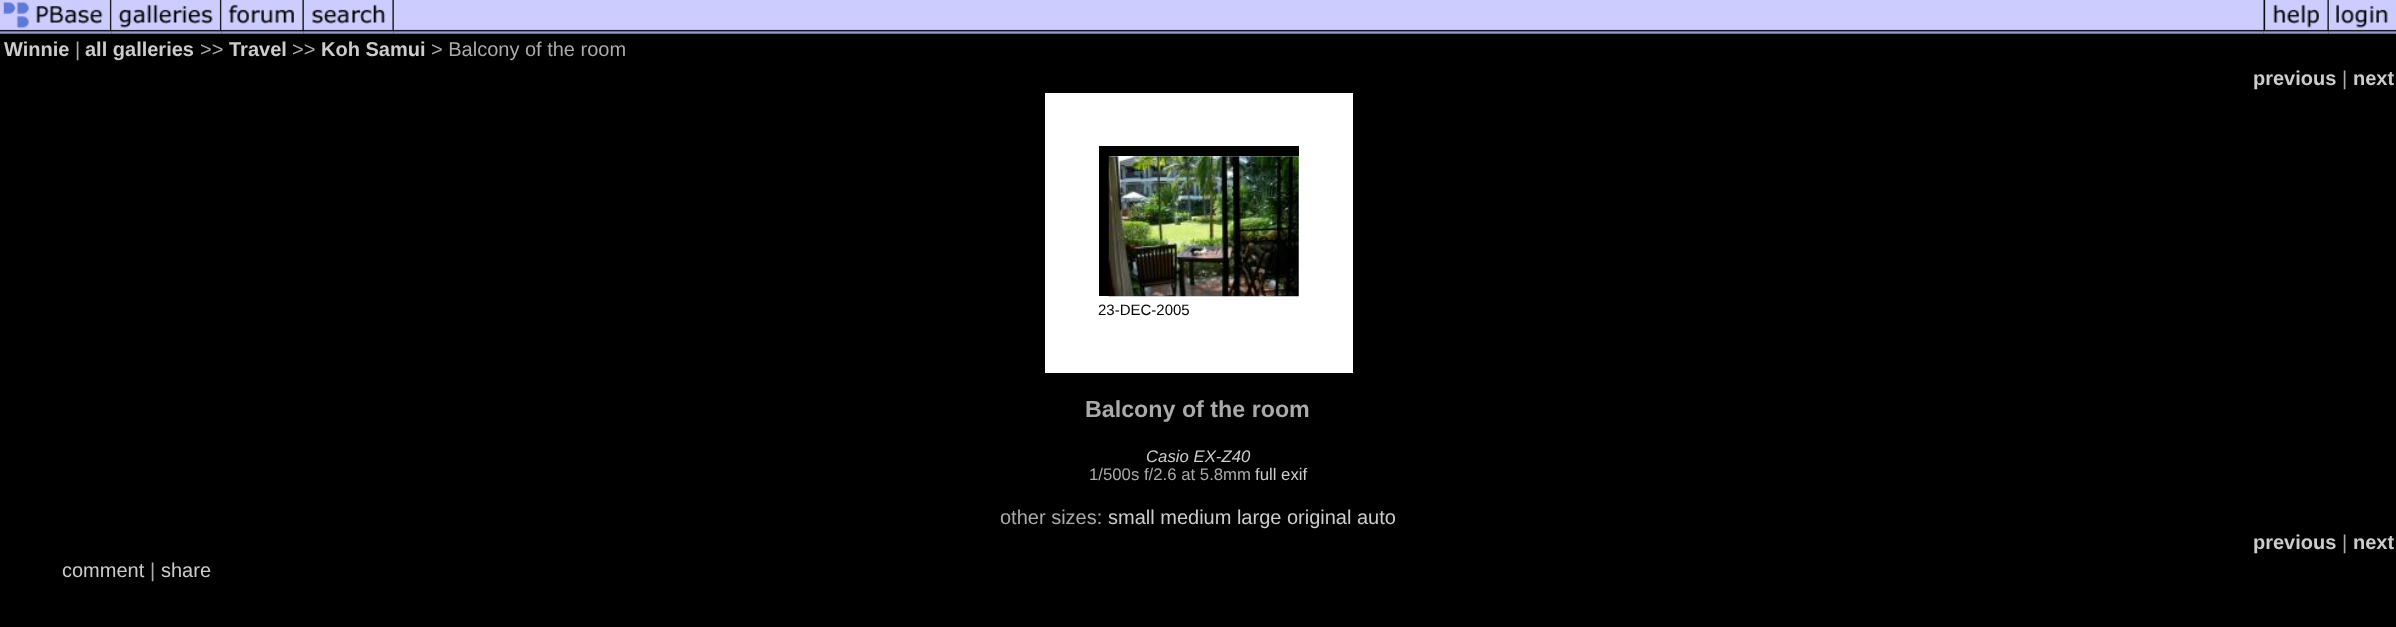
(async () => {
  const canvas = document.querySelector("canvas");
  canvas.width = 2396;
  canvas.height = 627;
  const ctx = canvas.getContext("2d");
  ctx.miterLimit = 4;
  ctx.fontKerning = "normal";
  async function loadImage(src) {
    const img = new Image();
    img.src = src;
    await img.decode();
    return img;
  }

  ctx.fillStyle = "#000000";
  ctx.fillRect(0, 0, 2396, 627);
  ctx.drawImage(await loadImage("img/1.png"), 0, 0, 112, 34);
  ctx.drawImage(await loadImage("img/2.png"), 111, 0, 111, 34);
  ctx.drawImage(await loadImage("img/3.png"), 221, 0, 83, 34);
  ctx.drawImage(await loadImage("img/4.png"), 303, 0, 91, 34);
  ctx.drawImage(await loadImage("img/5.png"), 393, 0, 1871, 34);
  ctx.drawImage(await loadImage("img/6.png"), 2263, 0, 66, 34);
  ctx.drawImage(await loadImage("img/7.png"), 2328, 0, 68, 34);
  ctx.fillStyle = "#ffffff";
  ctx.fillRect(1045, 93, 308, 280);
  ctx.save();
  ctx.beginPath();
  ctx.rect(1099, 146, 200, 150);
  ctx.clip();
  ctx.strokeStyle = "#000000";
  ctx.lineWidth = 10;
  ctx.strokeRect(1104, 151, 205, 158);
  ctx.restore();
  ctx.drawImage(await loadImage("img/8.png"), 1108, 156, 191, 141);
  ctx.font = "bold 20px Liberation Sans";
  ctx.fillStyle = "#cccccc";
  ctx.fillText("Winnie", 4, 56);
  ctx.font = "20px Liberation Sans";
  ctx.fillStyle = "#aaaaaa";
  ctx.fillText("|", 75, 56);
  ctx.font = "bold 20px Liberation Sans";
  ctx.fillStyle = "#cccccc";
  ctx.fillText("all galleries", 85, 56);
  ctx.font = "20px Liberation Sans";
  ctx.fillStyle = "#aaaaaa";
  ctx.fillText(">>", 200, 56);
  ctx.font = "bold 20px Liberation Sans";
  ctx.fillStyle = "#cccccc";
  ctx.fillText("Travel", 229, 56);
  ctx.font = "20px Liberation Sans";
  ctx.fillStyle = "#aaaaaa";
  ctx.fillText(">>", 292, 56);
  ctx.font = "bold 20px Liberation Sans";
  ctx.fillStyle = "#cccccc";
  ctx.fillText("Koh Samui", 321, 56);
  ctx.font = "20px Liberation Sans";
  ctx.fillStyle = "#aaaaaa";
  ctx.fillText("> Balcony of the room", 431, 56);
  ctx.font = "bold 20px Liberation Sans";
  ctx.fillStyle = "#cccccc";
  ctx.fillText("previous", 2253, 85);
  ctx.font = "20px Liberation Sans";
  ctx.fillStyle = "#aaaaaa";
  ctx.fillText("|", 2342, 85);
  ctx.font = "bold 20px Liberation Sans";
  ctx.fillStyle = "#cccccc";
  ctx.fillText("next", 2353, 85);
  ctx.font = "15px Liberation Sans";
  ctx.fillStyle = "#000000";
  ctx.fillText("23-DEC-2005", 1098, 315);
  ctx.font = "bold 23.25px Liberation Sans";
  ctx.fillStyle = "#aaaaaa";
  ctx.fillText("Balcony of the room", 1085, 417);
  ctx.font = "italic 16.75px Liberation Sans";
  ctx.fillStyle = "#cccccc";
  ctx.fillText("Casio EX-Z40", 1146, 462);
  ctx.font = "16.75px Liberation Sans";
  ctx.fillStyle = "#aaaaaa";
  ctx.fillText("1/500s f/2.6 at 5.8mm", 1089, 480);
  ctx.fillStyle = "#cccccc";
  ctx.fillText("full exif", 1255, 480);
  ctx.font = "20px Liberation Sans";
  ctx.fillStyle = "#aaaaaa";
  ctx.fillText("other sizes:", 1000, 524);
  ctx.fillStyle = "#cccccc";
  ctx.fillText("small medium large original auto", 1108, 524);
  ctx.font = "bold 20px Liberation Sans";
  ctx.fillText("previous", 2253, 549);
  ctx.font = "20px Liberation Sans";
  ctx.fillStyle = "#aaaaaa";
  ctx.fillText("|", 2342, 549);
  ctx.font = "bold 20px Liberation Sans";
  ctx.fillStyle = "#cccccc";
  ctx.fillText("next", 2353, 549);
  ctx.font = "20px Liberation Sans";
  ctx.fillText("comment", 62, 577);
  ctx.fillStyle = "#aaaaaa";
  ctx.fillText("|", 150, 577);
  ctx.fillStyle = "#cccccc";
  ctx.fillText("share", 161, 577);
})();
